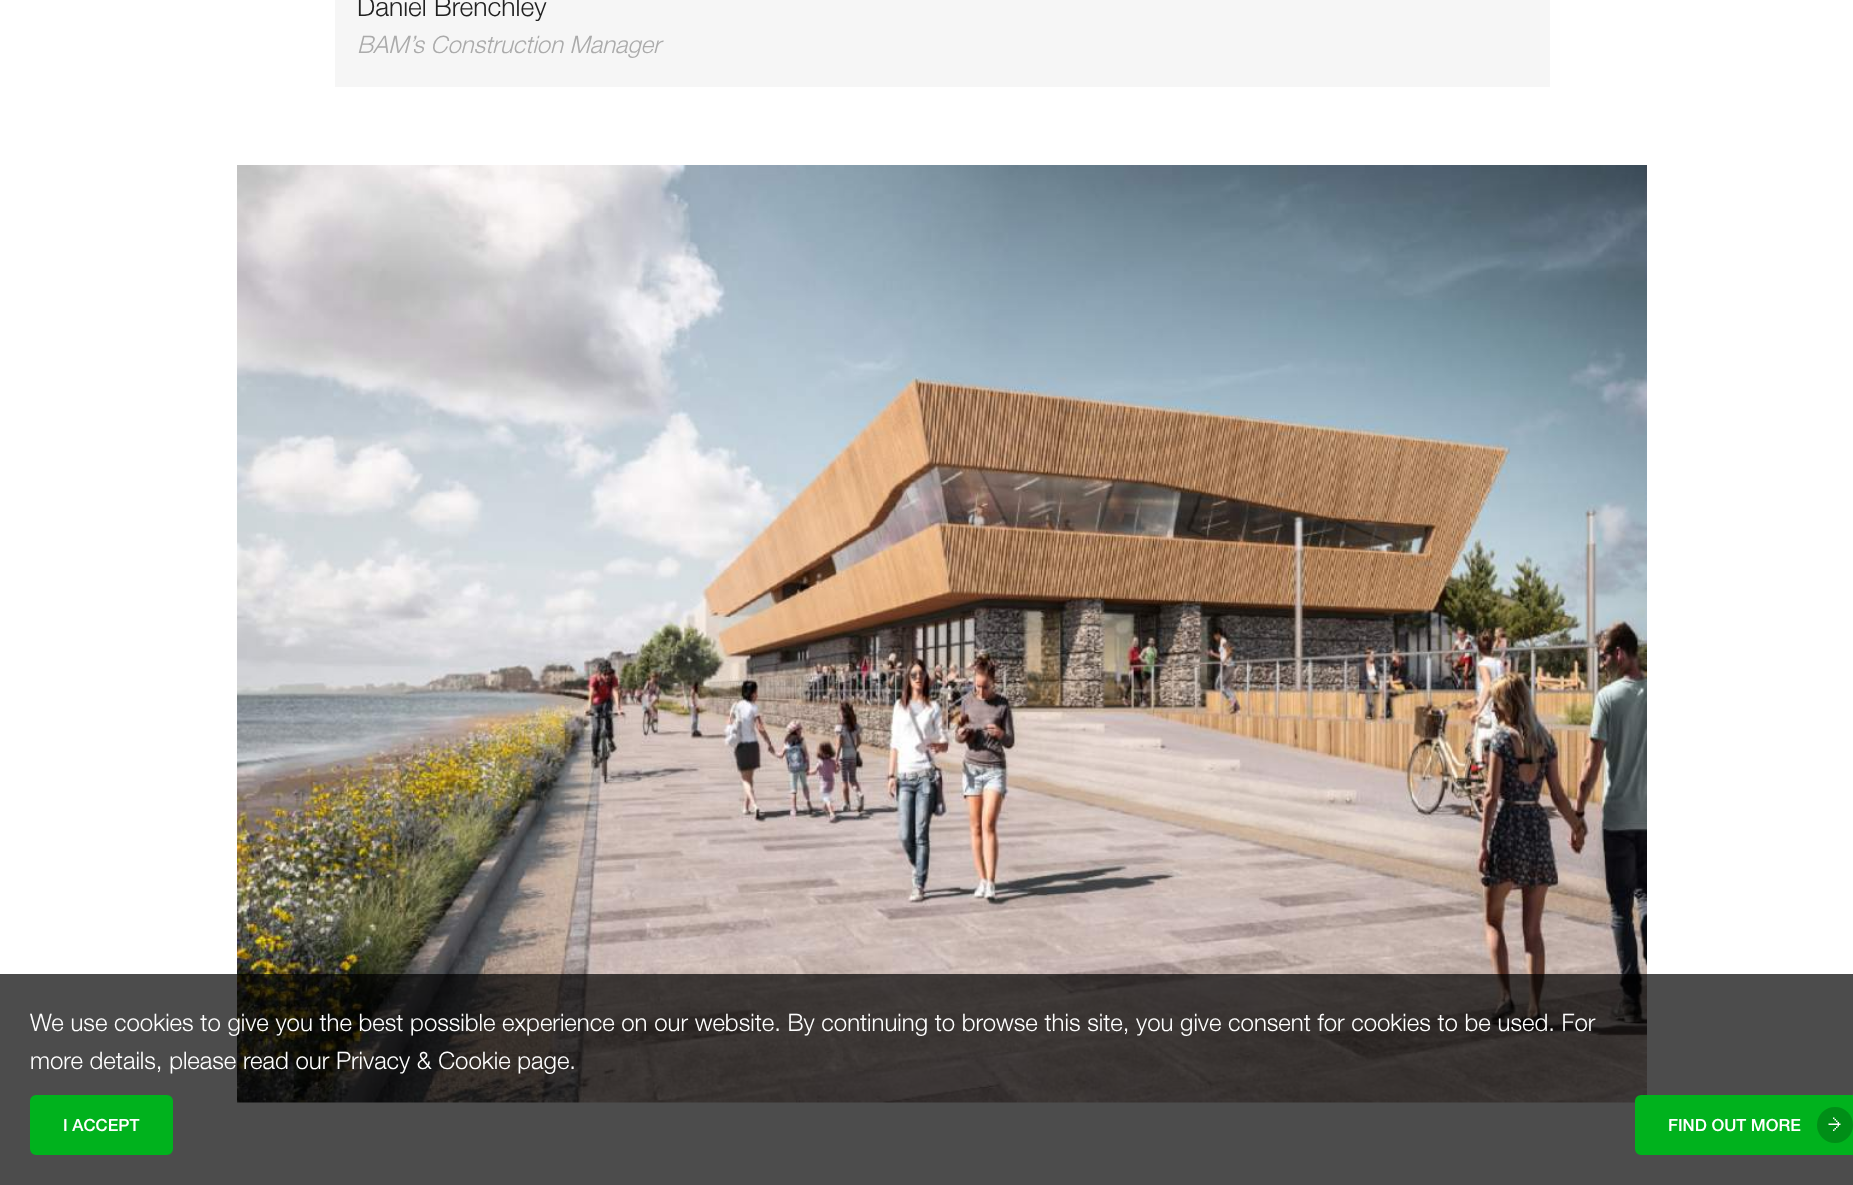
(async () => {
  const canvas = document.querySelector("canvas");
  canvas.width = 1853;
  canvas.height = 1185;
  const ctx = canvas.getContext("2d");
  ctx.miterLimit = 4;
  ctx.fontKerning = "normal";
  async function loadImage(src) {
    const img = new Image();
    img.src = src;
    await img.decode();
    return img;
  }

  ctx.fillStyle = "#ffffff";
  ctx.fillRect(0, 0, 1853, 1185);
  ctx.fillStyle = "#f6f6f6";
  ctx.fillRect(335, 0, 1215, 87);
  ctx.drawImage(await loadImage("img/1.png"), 237, 165, 1410, 938);
  ctx.fillStyle = "rgba(0, 0, 0, 0.7)";
  ctx.fillRect(0, 974, 1853, 211);
  ctx.fillStyle = "#00b21d";
  ctx.beginPath();
  ctx.roundRect(31.5, 1096.5, 140, 57, 4.5);
  ctx.fill();
  ctx.strokeStyle = "#00b21d";
  ctx.lineWidth = 3;
  ctx.stroke();
  ctx.beginPath();
  ctx.roundRect(1636.5, 1096.5, 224, 57, 4.5);
  ctx.fill();
  ctx.stroke();
  ctx.fillStyle = "#008e17";
  ctx.beginPath();
  ctx.arc(1835, 1125, 18, 0, Math.PI * 2);
  ctx.fill();
  ctx.drawImage(await loadImage("img/2.png"), 1828, 1117, 13, 14);
  ctx.font = "300 26.5px 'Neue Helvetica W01'";
  ctx.fillStyle = "#212121";
  ctx.fillText("Daniel Brenchley", 357, 16);
  ctx.font = "italic 300 24px 'Neue Helvetica W01'";
  ctx.fillStyle = "#ababab";
  ctx.fillText("BAM’s Construction Manager", 357, 53);
  ctx.font = "300 24px 'Neue Helvetica W01'";
  ctx.fillStyle = "#ffffff";
  ctx.fillText("We use cookies to give you the best possible experience on our website. By continuing to browse this site, you give consent for cookies to be used. For", 30, 1031);
  ctx.fillText("more details, please read our Privacy & Cookie page.", 30, 1069);
  ctx.font = "500 16.75px 'Neue Helvetica W01'";
  ctx.fillText("I ACCEPT", 63, 1131);
  ctx.fillText("FIND OUT MORE", 1668, 1131);
})();
